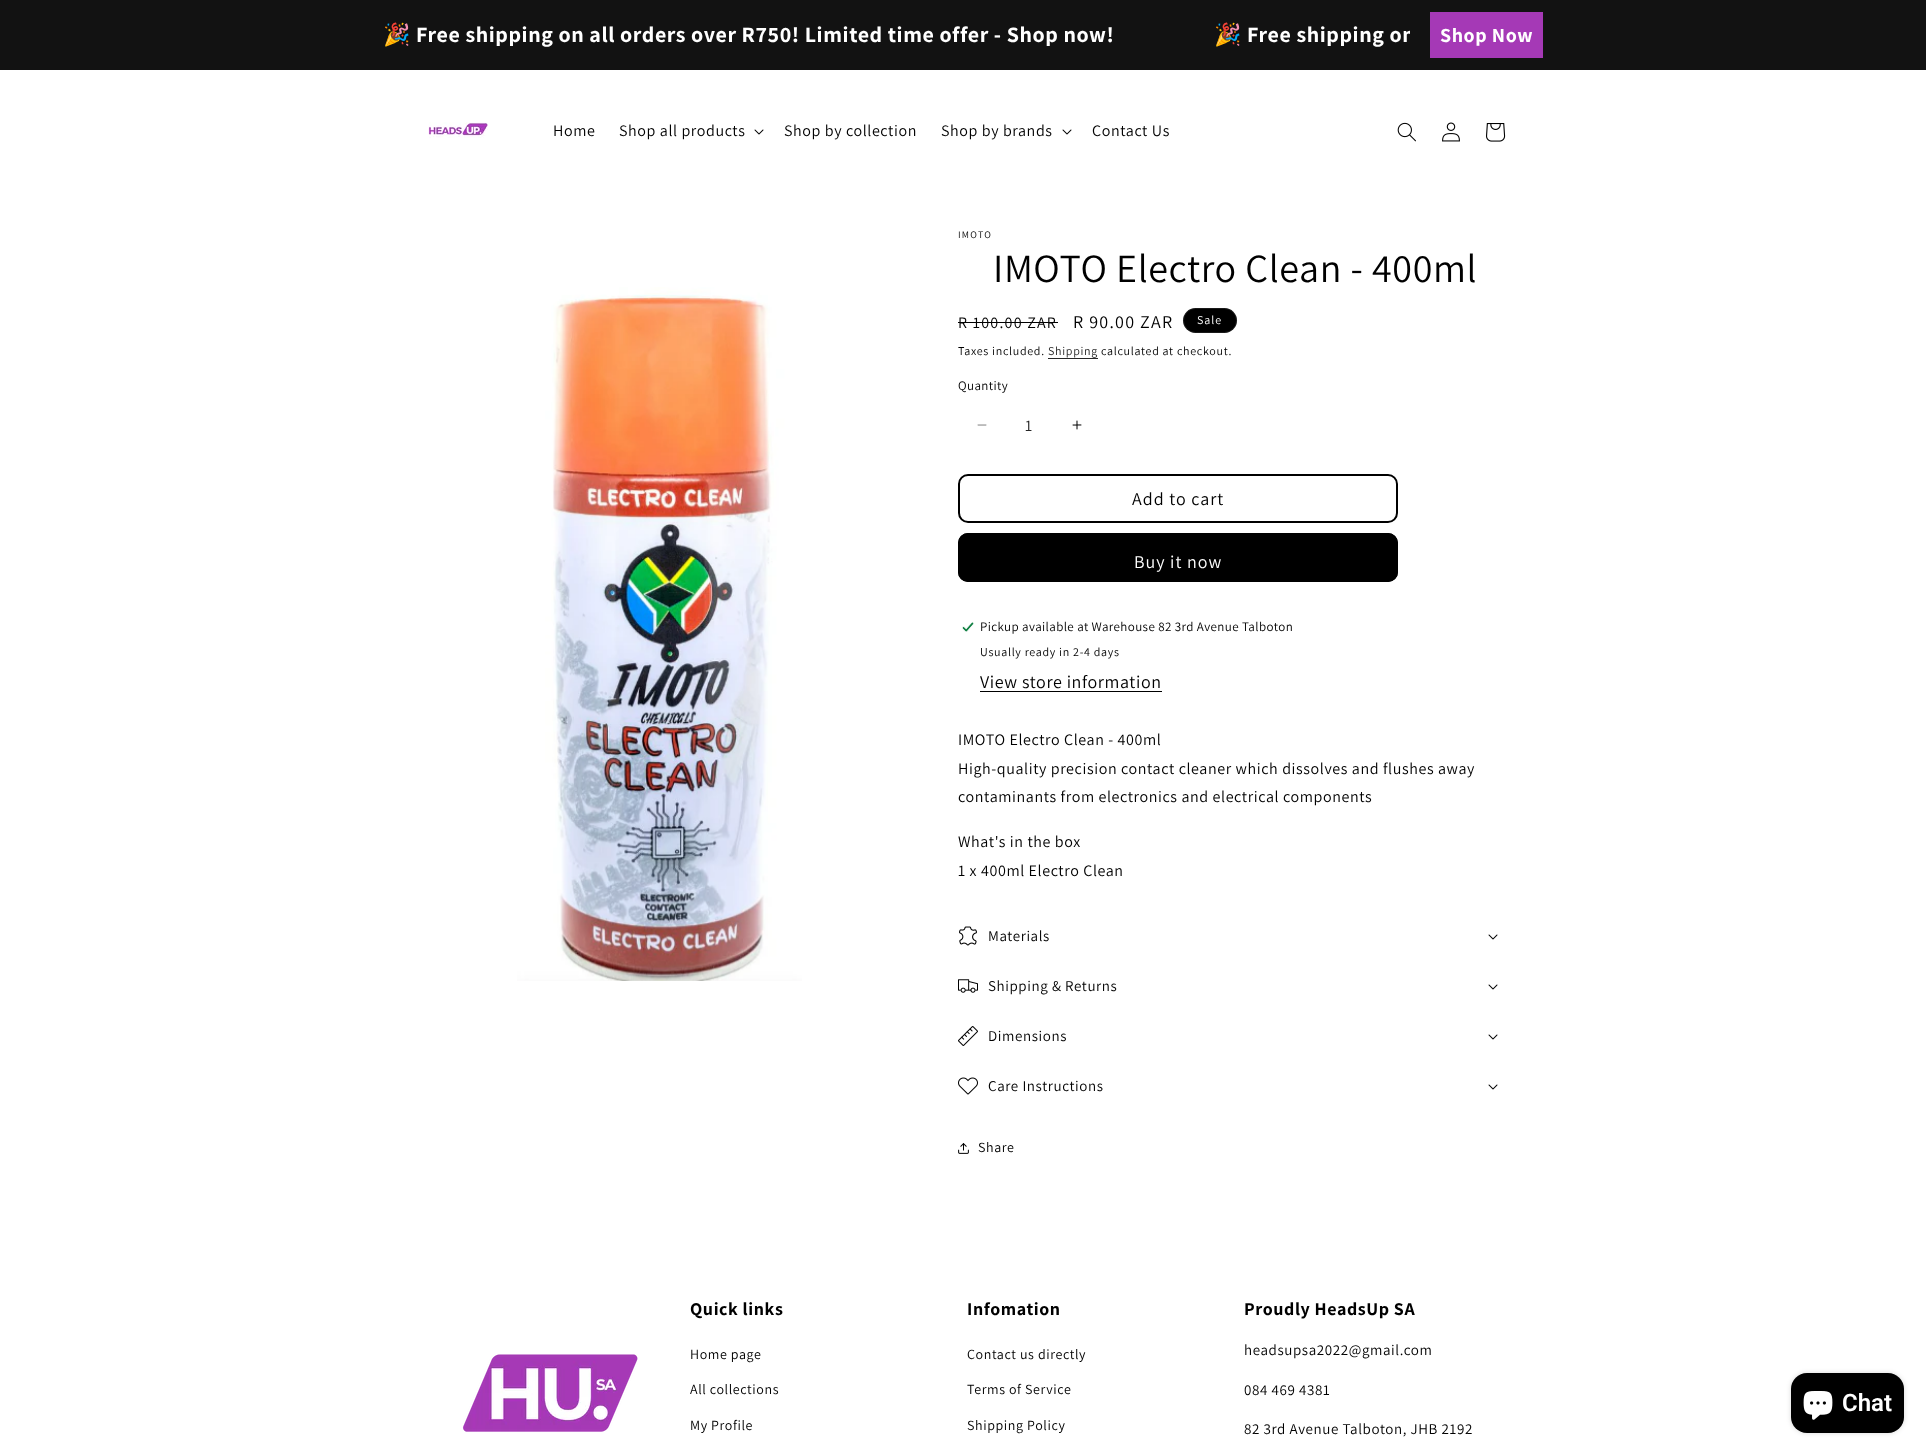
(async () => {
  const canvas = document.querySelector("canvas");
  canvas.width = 1926;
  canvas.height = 1454;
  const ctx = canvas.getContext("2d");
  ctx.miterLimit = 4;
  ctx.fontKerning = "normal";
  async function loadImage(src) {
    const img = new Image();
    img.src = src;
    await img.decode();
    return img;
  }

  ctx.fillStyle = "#ffffff";
  ctx.fillRect(0, 0, 1926, 1454);
  ctx.fillStyle = "#121212";
  ctx.fillRect(0, 0, 1926, 70);
  ctx.fillStyle = "#a539b6";
  ctx.fillRect(1430, 12, 113, 46);
  ctx.drawImage(await loadImage("img/1.png"), 428, 122, 60, 16);
  ctx.drawImage(await loadImage("img/2.png"), 754, 129, 10, 6);
  ctx.drawImage(await loadImage("img/2.png"), 1062, 129, 10, 6);
  ctx.drawImage(await loadImage("img/3.png"), 1397, 122, 19, 20);
  ctx.drawImage(await loadImage("img/4.png"), 1442, 122, 18, 20);
  ctx.drawImage(await loadImage("img/5.png"), 1486, 123, 20, 19);
  ctx.drawImage(await loadImage("img/6.png"), 517, 287, 285, 694);
  ctx.fillStyle = "#000000";
  ctx.fillRect(958, 322, 100, 1);
  ctx.beginPath();
  ctx.roundRect(1183, 308, 54, 25, 12.5);
  ctx.fill();
  ctx.beginPath();
  ctx.roundRect(1183.5, 308.5, 53, 24, 12);
  ctx.strokeStyle = "rgba(255, 255, 255, 0.1)";
  ctx.stroke();
  ctx.fillStyle = "#262626";
  ctx.fillRect(1048, 358, 50, 1);
  ctx.drawImage(await loadImage("img/7.png"), 977, 424, 10, 2);
  ctx.drawImage(await loadImage("img/8.png"), 1072, 420, 10, 10);
  ctx.beginPath();
  ctx.roundRect(959, 475, 438, 47, 9);
  ctx.strokeStyle = "#000000";
  ctx.lineWidth = 2;
  ctx.stroke();
  ctx.fillStyle = "#000000";
  ctx.beginPath();
  ctx.roundRect(958, 533, 440, 49, 10);
  ctx.fill();
  ctx.beginPath();
  ctx.roundRect(959, 534, 438, 47, 9);
  ctx.stroke();
  ctx.drawImage(await loadImage("img/9.png"), 962, 622, 12, 10);
  ctx.fillRect(980, 691, 182, 1);
  ctx.drawImage(await loadImage("img/10.png"), 959, 926, 18, 20);
  ctx.drawImage(await loadImage("img/2.png"), 1488, 934, 10, 6);
  ctx.drawImage(await loadImage("img/11.png"), 958, 979, 20, 14);
  ctx.drawImage(await loadImage("img/2.png"), 1488, 984, 10, 6);
  ctx.drawImage(await loadImage("img/12.png"), 958, 1026, 20, 20);
  ctx.drawImage(await loadImage("img/2.png"), 1488, 1034, 10, 6);
  ctx.drawImage(await loadImage("img/13.png"), 958, 1077, 20, 18);
  ctx.drawImage(await loadImage("img/2.png"), 1488, 1084, 10, 6);
  ctx.drawImage(await loadImage("img/14.png"), 958, 1143, 11, 11);
  ctx.drawImage(await loadImage("img/15.png"), 462, 1354, 176, 78);
  ctx.fillStyle = "rgba(0, 0, 0, 0.15)";
  ctx.filter = "blur(2.5px)";
  ctx.beginPath();
  ctx.roundRect(1791, 1373, 113, 60, 16);
  ctx.fill();
  ctx.filter = "none";
  ctx.fillStyle = "#000000";
  ctx.beginPath();
  ctx.roundRect(1791, 1373, 113, 60, 16);
  ctx.fill();
  ctx.drawImage(await loadImage("img/16.png"), 1803, 1391, 30, 29);
  ctx.letterSpacing = "0.6px";
  ctx.font = "bold 22px Noto Color Emoji";
  ctx.fillStyle = "#ffffff";
  ctx.fillText("🎉", 383, 42);
  ctx.font = "bold 22px Assistant";
  ctx.fillText("Free shipping on all orders over R750! Limited time offer - Shop now!", 416, 42);
  ctx.font = "bold 22px Noto Color Emoji";
  ctx.fillText("🎉", 1214, 42);
  ctx.save();
  ctx.beginPath();
  ctx.rect(383, 15, 1027, 40);
  ctx.clip();
  ctx.font = "bold 22px Assistant";
  ctx.fillText("Free shipping on", 1247, 42);
  ctx.restore();
  ctx.font = "bold 20px Assistant";
  ctx.fillText("Shop Now", 1440, 42);
  ctx.font = "16px Assistant";
  ctx.fillStyle = "#000000";
  for (const [text, x, y] of [
    ["Home", 553, 136],
    ["Shop all products", 619, 136],
    ["Shop by collection", 784, 136],
    ["Shop by brands", 941, 136],
    ["Contact Us", 1092, 136],
  ]) {
    ctx.fillText(text, x, y);
  }
  ctx.letterSpacing = "1.25px";
  ctx.font = "10px Assistant";
  ctx.fillText("IMOTO", 958, 238);
  ctx.letterSpacing = "0.6px";
  ctx.font = "40px Assistant";
  ctx.fillText("IMOTO Electro Clean - 400ml", 993, 282);
  ctx.letterSpacing = "1.25px";
  ctx.font = "16px Assistant";
  ctx.fillText("R 100.00 ZAR", 958, 328);
  ctx.font = "18px Assistant";
  ctx.fillText("R 90.00 ZAR", 1073, 328);
  ctx.letterSpacing = "1px";
  ctx.font = "12px Assistant";
  ctx.fillStyle = "#ffffff";
  ctx.fillText("Sale", 1197, 324);
  ctx.letterSpacing = "0.7px";
  ctx.fillStyle = "#000000";
  ctx.fillText("Taxes included.", 958, 355);
  ctx.fillStyle = "#262626";
  ctx.fillText("Shipping", 1048, 355);
  ctx.fillStyle = "#000000";
  ctx.fillText("calculated at checkout.", 1101, 355);
  ctx.letterSpacing = "0.4px";
  ctx.font = "13px Assistant";
  ctx.fillText("Quantity", 958, 390);
  ctx.letterSpacing = "0px";
  ctx.font = "16px Assistant";
  ctx.fillStyle = "#262626";
  ctx.fillText("1", 1025, 431);
  ctx.letterSpacing = "1px";
  ctx.font = "18px Assistant";
  ctx.fillStyle = "#000000";
  ctx.fillText("Add to cart", 1132, 505);
  ctx.fillStyle = "#ffffff";
  ctx.fillText("Buy it now", 1134, 568);
  ctx.letterSpacing = "0.4px";
  ctx.font = "13px Assistant";
  ctx.fillStyle = "#000000";
  ctx.fillText("Pickup available at Warehouse 82 3rd Avenue Talboton", 980, 631);
  ctx.letterSpacing = "0.7px";
  ctx.font = "12px Assistant";
  ctx.fillText("Usually ready in 2-4 days", 980, 656);
  ctx.letterSpacing = "0.6px";
  ctx.font = "18px Assistant";
  ctx.fillText("View store information", 980, 688);
  ctx.font = "16px Assistant";
  for (const [text, x, y] of [
    ["IMOTO Electro Clean - 400ml", 958, 745],
    ["High-quality precision contact cleaner which dissolves and flushes away", 958, 774],
    ["contaminants from electronics and electrical components", 958, 802],
    ["What's in the box", 958, 847],
    ["1 x 400ml Electro Clean", 958, 876],
  ]) {
    ctx.fillText(text, x, y);
  }
  ctx.font = "15px Assistant";
  for (const [text, x, y] of [
    ["Materials", 988, 941],
    ["Shipping & Returns", 988, 991],
    ["Dimensions", 988, 1041],
    ["Care Instructions", 988, 1091],
  ]) {
    ctx.fillText(text, x, y);
  }
  ctx.font = "14px Assistant";
  ctx.fillText("Share", 978, 1152);
  ctx.font = "bold 18px Assistant";
  ctx.fillText("Quick links", 690, 1315);
  ctx.font = "14px Assistant";
  for (const [text, x, y] of [
    ["Home page", 690, 1359],
    ["All collections", 690, 1394],
    ["My Profile", 690, 1430],
  ]) {
    ctx.fillText(text, x, y);
  }
  ctx.font = "bold 18px Assistant";
  ctx.fillText("Infomation", 967, 1315);
  ctx.font = "14px Assistant";
  for (const [text, x, y] of [
    ["Contact us directly", 967, 1359],
    ["Terms of Service", 967, 1394],
    ["Shipping Policy", 967, 1430],
  ]) {
    ctx.fillText(text, x, y);
  }
  ctx.font = "bold 18px Assistant";
  ctx.fillText("Proudly HeadsUp SA", 1244, 1315);
  ctx.font = "15px Assistant";
  for (const [text, x, y] of [
    ["headsupsa2022@gmail.com", 1244, 1355],
    ["084 469 4381", 1244, 1395],
    ["82 3rd Avenue Talboton, JHB 2192", 1244, 1434],
  ]) {
    ctx.fillText(text, x, y);
  }
  ctx.letterSpacing = "0px";
  ctx.font = "600 24px Roboto";
  ctx.fillStyle = "#ffffff";
  ctx.fillText("Chat", 1842, 1411);
})();
